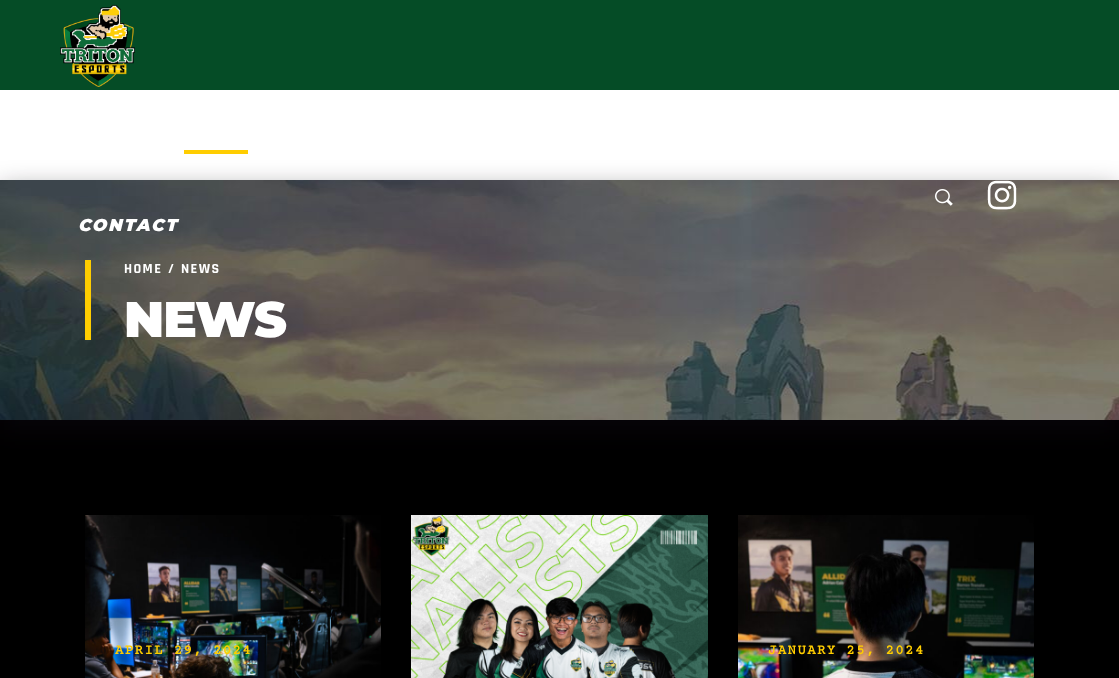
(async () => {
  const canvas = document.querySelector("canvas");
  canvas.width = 1119;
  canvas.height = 678;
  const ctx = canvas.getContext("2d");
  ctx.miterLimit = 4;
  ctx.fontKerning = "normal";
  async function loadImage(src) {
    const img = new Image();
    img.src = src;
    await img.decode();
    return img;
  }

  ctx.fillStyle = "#ffffff";
  ctx.fillRect(0, 0, 1119, 678);
  ctx.fillStyle = "#054c26";
  ctx.fillRect(0, 0, 1119, 90);
  ctx.drawImage(await loadImage("img/1.png"), 60, 4, 75, 83);
  ctx.fillStyle = "#000000";
  ctx.fillRect(0, 420, 1119, 258);
  ctx.fillStyle = "rgba(14, 8, 18, 0.5)";
  ctx.filter = "blur(13.5px)";
  ctx.beginPath();
  ctx.rect(0, 190, 1119, 240);
  ctx.fill();
  ctx.filter = "none";
  ctx.drawImage(await loadImage("img/4.png"), 0, 180, 1119, 240);
  ctx.drawImage(await loadImage("img/2.png"), 935, 189, 18, 17);
  ctx.drawImage(await loadImage("img/3.png"), 987, 180, 30, 30);
  ctx.fillStyle = "#ffcd00";
  ctx.fillRect(184, 150, 64, 4);
  ctx.fillRect(85, 260, 6, 80);
  ctx.drawImage(await loadImage("img/5.png"), 85, 515, 296, 163);
  ctx.drawImage(await loadImage("img/6.png"), 411, 515, 297, 163);
  ctx.drawImage(await loadImage("img/7.png"), 738, 515, 296, 163);
  ctx.letterSpacing = "1.75px";
  ctx.font = "italic 100 17px Montserrat";
  ctx.fillStyle = "#ffffff";
  ctx.fillText("CONTACT", 78, 231);
  ctx.letterSpacing = "1.4px";
  ctx.font = "bold 14px Rajdhani";
  for (const [text, x, y] of [
    ["HOME", 124, 273],
    ["/", 168, 273],
    ["NEWS", 181, 273],
  ]) {
    ctx.fillText(text, x, y);
  }
  ctx.letterSpacing = "-1px";
  ctx.font = "100 50px Montserrat";
  ctx.fillText("NEWS", 124, 337);
  ctx.letterSpacing = "1.4px";
  ctx.font = "bold 14px Courier Prime";
  ctx.fillStyle = "#ffcd00";
  ctx.fillText("APRIL 29, 2024", 115, 654);
  ctx.fillText("JANUARY 25, 2024", 768, 654);
})();
